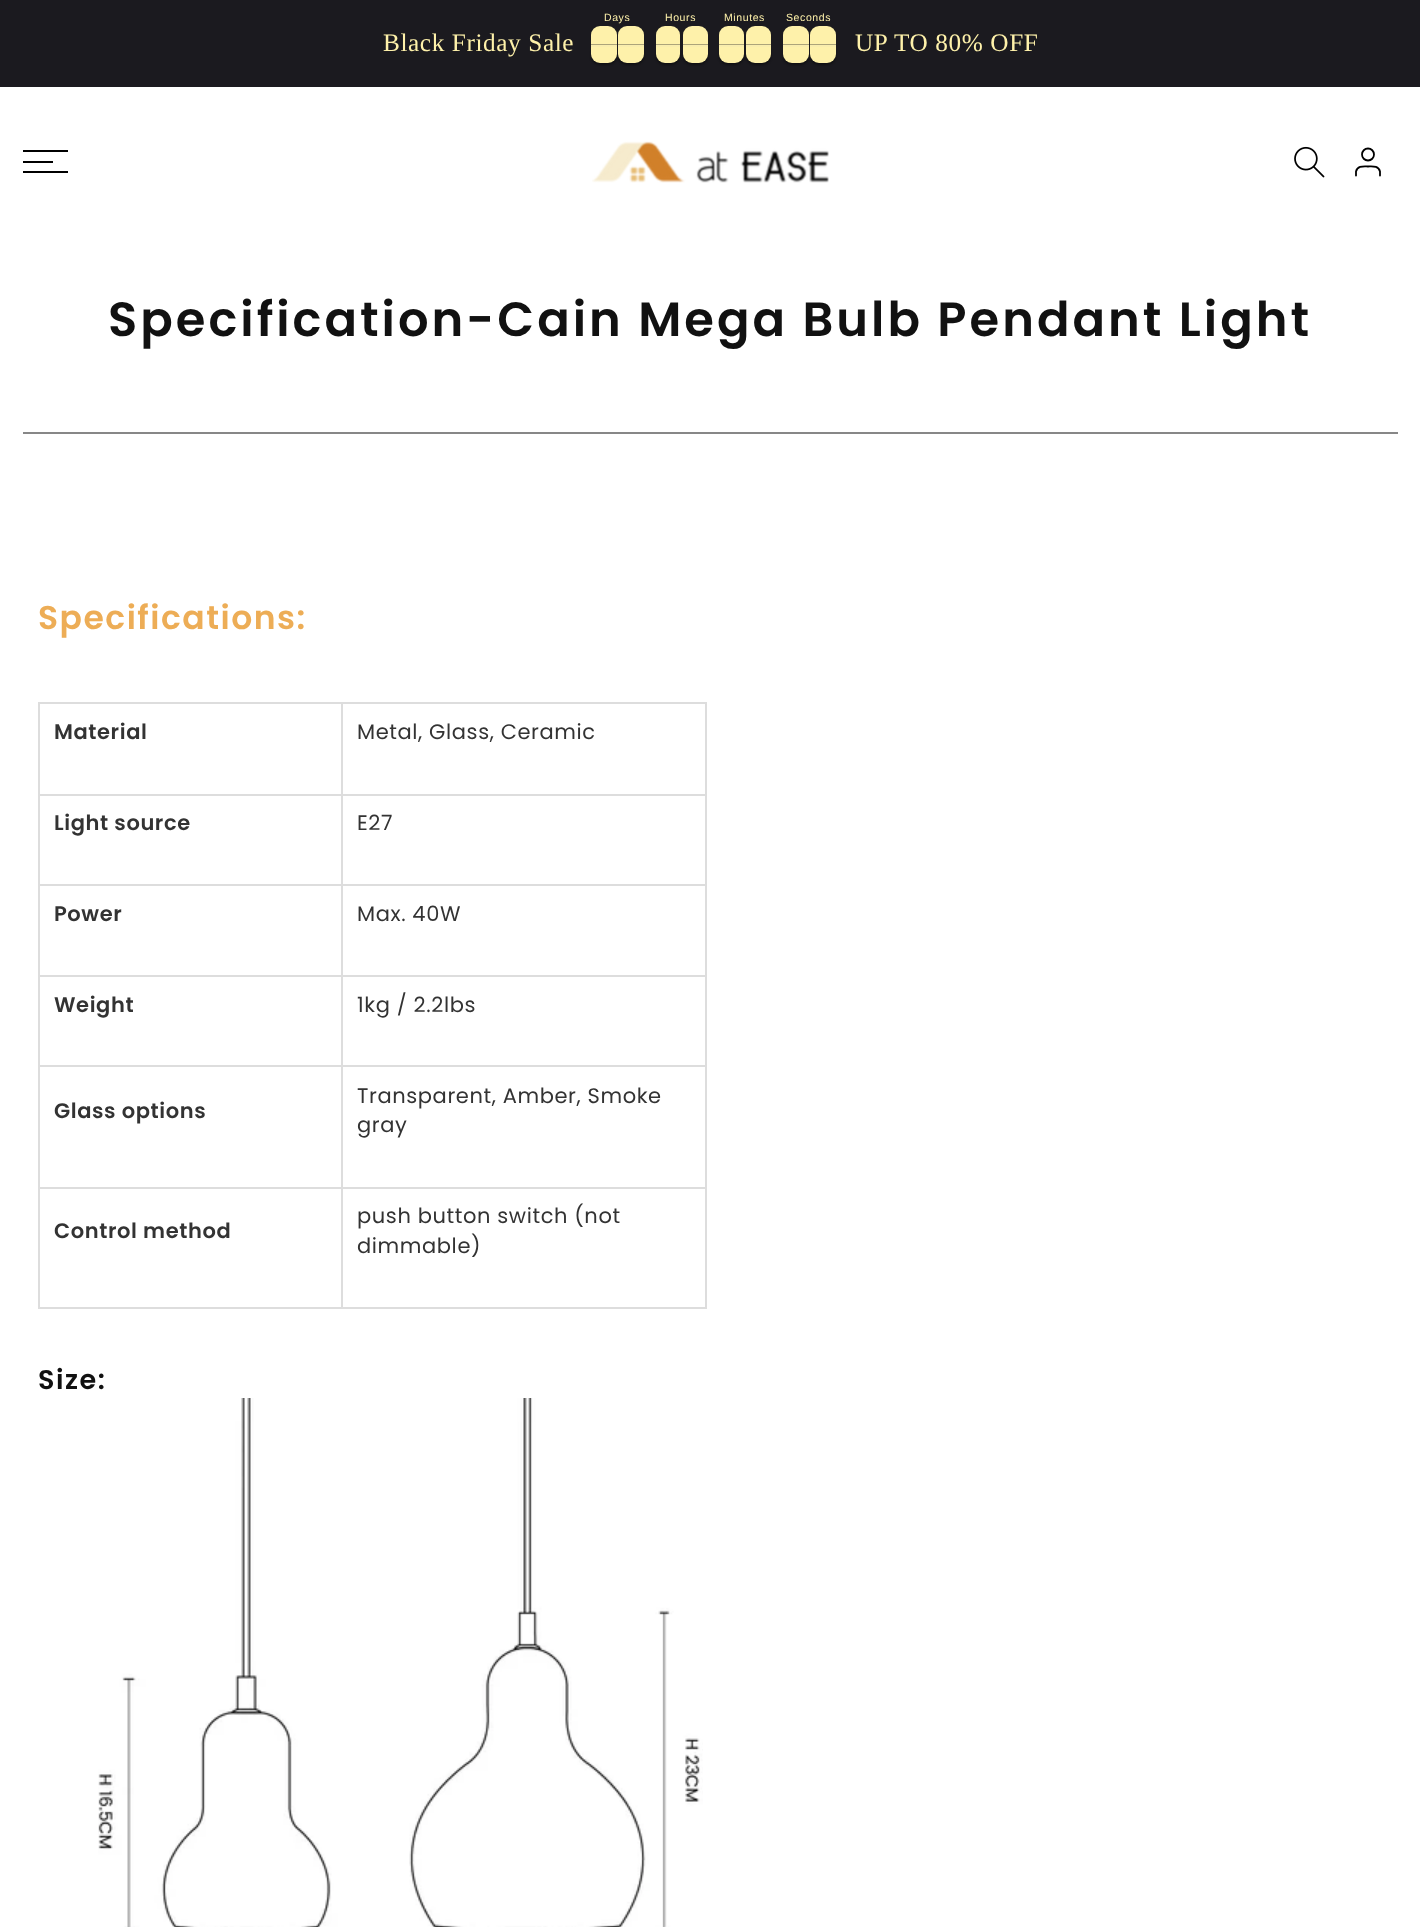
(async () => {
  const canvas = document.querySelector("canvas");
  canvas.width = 1420;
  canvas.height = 1927;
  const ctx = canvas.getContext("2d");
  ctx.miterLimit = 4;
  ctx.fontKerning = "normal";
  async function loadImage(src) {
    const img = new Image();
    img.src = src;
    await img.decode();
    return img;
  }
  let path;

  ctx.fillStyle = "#ffffff";
  ctx.fillRect(0, 0, 1420, 1927);
  ctx.fillStyle = "#1b1a1f";
  ctx.fillRect(0, 0, 1420, 87);
  ctx.fillStyle = "rgba(0, 0, 0, 0.4)";
  ctx.filter = "blur(1px)";
  ctx.beginPath();
  ctx.roundRect(591, 47, 26, 18, 9);
  ctx.fill();
  ctx.filter = "none";
  ctx.filter = "blur(1px)";
  ctx.beginPath();
  ctx.roundRect(618, 47, 26, 18, 9);
  ctx.fill();
  ctx.filter = "none";
  ctx.fillStyle = "#fef1aa";
  ctx.beginPath();
  ctx.roundRect(591, 26, 26, 19, [9, 9, 0, 0]);
  ctx.fill();
  ctx.fillStyle = "rgba(51, 51, 51, 0.4)";
  ctx.fillRect(591, 44, 26, 1);
  ctx.fillStyle = "#fef1aa";
  ctx.beginPath();
  ctx.roundRect(591, 45, 26, 18, [0, 0, 9, 9]);
  ctx.fill();
  ctx.fillStyle = "rgba(204, 204, 204, 0.1)";
  ctx.fillRect(591, 45, 26, 2);
  ctx.fillStyle = "#fef1aa";
  ctx.beginPath();
  ctx.roundRect(618, 26, 26, 19, [9, 9, 0, 0]);
  ctx.fill();
  ctx.fillStyle = "rgba(51, 51, 51, 0.4)";
  ctx.fillRect(618, 44, 26, 1);
  ctx.fillStyle = "#fef1aa";
  ctx.beginPath();
  ctx.roundRect(618, 45, 26, 18, [0, 0, 9, 9]);
  ctx.fill();
  ctx.fillStyle = "rgba(204, 204, 204, 0.1)";
  ctx.fillRect(618, 45, 26, 2);
  ctx.fillStyle = "rgba(0, 0, 0, 0.4)";
  ctx.filter = "blur(1px)";
  ctx.beginPath();
  ctx.roundRect(656, 47, 24, 18, 9);
  ctx.fill();
  ctx.filter = "none";
  ctx.filter = "blur(1px)";
  ctx.beginPath();
  ctx.roundRect(683, 47, 25, 18, 9);
  ctx.fill();
  ctx.filter = "none";
  ctx.fillStyle = "#fef1aa";
  ctx.beginPath();
  ctx.roundRect(656, 26, 24, 19, [9, 9, 0, 0]);
  ctx.fill();
  ctx.fillStyle = "rgba(51, 51, 51, 0.4)";
  ctx.fillRect(656, 44, 24, 1);
  ctx.fillStyle = "#fef1aa";
  ctx.beginPath();
  ctx.roundRect(656, 45, 24, 18, [0, 0, 9, 9]);
  ctx.fill();
  ctx.fillStyle = "rgba(204, 204, 204, 0.1)";
  ctx.fillRect(656, 45, 24, 2);
  ctx.fillStyle = "#fef1aa";
  ctx.beginPath();
  ctx.roundRect(683, 26, 25, 19, [9, 9, 0, 0]);
  ctx.fill();
  ctx.fillStyle = "rgba(51, 51, 51, 0.4)";
  ctx.fillRect(683, 44, 25, 1);
  ctx.fillStyle = "#fef1aa";
  ctx.beginPath();
  ctx.roundRect(683, 45, 25, 18, [0, 0, 9, 9]);
  ctx.fill();
  ctx.fillStyle = "rgba(204, 204, 204, 0.1)";
  ctx.fillRect(683, 45, 25, 2);
  ctx.fillStyle = "rgba(0, 0, 0, 0.4)";
  ctx.filter = "blur(1px)";
  ctx.beginPath();
  ctx.roundRect(719, 47, 25, 18, 9);
  ctx.fill();
  ctx.filter = "none";
  ctx.filter = "blur(1px)";
  ctx.beginPath();
  ctx.roundRect(746, 47, 25, 18, 9);
  ctx.fill();
  ctx.filter = "none";
  ctx.fillStyle = "#fef1aa";
  ctx.beginPath();
  ctx.roundRect(719, 26, 25, 19, [9, 9, 0, 0]);
  ctx.fill();
  ctx.fillStyle = "rgba(51, 51, 51, 0.4)";
  ctx.fillRect(719, 44, 25, 1);
  ctx.fillStyle = "#fef1aa";
  ctx.beginPath();
  ctx.roundRect(719, 45, 25, 18, [0, 0, 9, 9]);
  ctx.fill();
  ctx.fillStyle = "rgba(204, 204, 204, 0.1)";
  ctx.fillRect(719, 45, 25, 2);
  ctx.fillStyle = "#fef1aa";
  ctx.beginPath();
  ctx.roundRect(746, 26, 25, 19, [9, 9, 0, 0]);
  ctx.fill();
  ctx.fillStyle = "rgba(51, 51, 51, 0.4)";
  ctx.fillRect(746, 44, 25, 1);
  ctx.fillStyle = "#fef1aa";
  ctx.beginPath();
  ctx.roundRect(746, 45, 25, 18, [0, 0, 9, 9]);
  ctx.fill();
  ctx.fillStyle = "rgba(204, 204, 204, 0.1)";
  ctx.fillRect(746, 45, 25, 2);
  ctx.fillStyle = "rgba(0, 0, 0, 0.4)";
  ctx.filter = "blur(1px)";
  ctx.beginPath();
  ctx.roundRect(783, 47, 26, 18, 9);
  ctx.fill();
  ctx.filter = "none";
  ctx.filter = "blur(1px)";
  ctx.beginPath();
  ctx.roundRect(810, 47, 26, 18, 9);
  ctx.fill();
  ctx.filter = "none";
  ctx.fillStyle = "#fef1aa";
  ctx.beginPath();
  ctx.roundRect(783, 26, 26, 19, [9, 9, 0, 0]);
  ctx.fill();
  ctx.fillStyle = "rgba(51, 51, 51, 0.4)";
  ctx.fillRect(783, 44, 26, 1);
  ctx.fillStyle = "#fef1aa";
  ctx.beginPath();
  ctx.roundRect(783, 45, 26, 18, [0, 0, 9, 9]);
  ctx.fill();
  ctx.fillStyle = "rgba(204, 204, 204, 0.1)";
  ctx.fillRect(783, 45, 26, 2);
  ctx.fillStyle = "#fef1aa";
  ctx.beginPath();
  ctx.roundRect(810, 26, 26, 19, [9, 9, 0, 0]);
  ctx.fill();
  ctx.fillStyle = "rgba(51, 51, 51, 0.4)";
  ctx.fillRect(810, 44, 26, 1);
  ctx.fillStyle = "#fef1aa";
  ctx.beginPath();
  ctx.roundRect(810, 45, 26, 18, [0, 0, 9, 9]);
  ctx.fill();
  for (const [x, y, w, h, color] of [
    [810, 45, 26, 2, "rgba(204, 204, 204, 0.1)"],
    [23, 150, 45, 2, "#000000"],
    [23, 161, 30, 2, "#000000"],
    [23, 171, 45, 2, "#000000"],
  ]) {
    ctx.fillStyle = color;
    ctx.fillRect(x, y, w, h);
  }
  ctx.drawImage(await loadImage("img/1.png"), 592, 141, 237, 42);
  ctx.drawImage(await loadImage("img/2.png"), 1294, 146, 31, 32);
  ctx.beginPath();
  ctx.arc(1368, 154.5, 6, 0, Math.PI * 2);
  ctx.strokeStyle = "#000000";
  ctx.lineWidth = 1.8;
  ctx.stroke();
  path = new Path2D("M1380 175.5V171.5C1378.5 165.5 1372.5 166.5 1368 166.5C1363.5 166.5 1357.5 165.5 1356 171.5V175.5");
  ctx.lineCap = "round";
  ctx.lineJoin = "round";
  ctx.stroke(path);
  for (const [x, y, w, h, color] of [
    [23, 432, 1375, 2, "#878787"],
    [38, 702, 669, 2, "#dddddd"],
    [705, 702, 2, 606, "#dddddd"],
    [38, 1307, 669, 2, "#dddddd"],
    [38, 702, 2, 606, "#dddddd"],
    [341, 1187, 2, 121, "#dddddd"],
    [341, 1187, 366, 2, "#dddddd"],
    [341, 1065, 2, 123, "#dddddd"],
    [341, 1065, 366, 2, "#dddddd"],
    [341, 975, 2, 92, "#dddddd"],
    [341, 975, 366, 2, "#dddddd"],
    [341, 884, 2, 93, "#dddddd"],
    [341, 884, 366, 2, "#dddddd"],
    [341, 794, 2, 91, "#dddddd"],
    [341, 794, 366, 2, "#dddddd"],
    [341, 702, 2, 93, "#dddddd"],
    [38, 794, 304, 2, "#dddddd"],
    [38, 884, 304, 2, "#dddddd"],
    [38, 975, 304, 2, "#dddddd"],
    [38, 1065, 304, 2, "#dddddd"],
    [38, 1187, 304, 2, "#dddddd"],
  ]) {
    ctx.fillStyle = color;
    ctx.fillRect(x, y, w, h);
  }
  ctx.drawImage(await loadImage("img/3.png"), 98, 1398, 605, 529);
  ctx.letterSpacing = "0.6px";
  ctx.font = "10.5px Liberation Sans";
  ctx.fillStyle = "#fef1aa";
  for (const [text, x, y] of [
    ["Days", 604, 21],
    ["Hours", 665, 21],
    ["Minutes", 724, 21],
    ["Seconds", 786, 21],
  ]) {
    ctx.fillText(text, x, y);
  }
  ctx.font = "25.25px Liberation Serif";
  ctx.fillText("Black Friday Sale", 383, 51);
  ctx.fillText("UP TO 80% OFF", 855, 51);
  ctx.letterSpacing = "3px";
  ctx.font = "600 48px Poppins";
  ctx.fillStyle = "#111111";
  ctx.fillText("Specification-Cain Mega Bulb Pendant Light", 108, 336);
  ctx.letterSpacing = "1.5px";
  ctx.font = "600 33px Poppins";
  ctx.fillStyle = "#edad56";
  ctx.fillText("Specifications:", 38, 629);
  ctx.letterSpacing = "0.6px";
  ctx.font = "600 21px Poppins";
  ctx.fillStyle = "#333333";
  ctx.fillText("Material", 54, 739);
  ctx.font = "21px Poppins";
  ctx.fillText("Metal, Glass, Ceramic", 357, 739);
  ctx.font = "600 21px Poppins";
  ctx.fillText("Light source", 54, 830);
  ctx.font = "21px Poppins";
  ctx.fillText("E27", 357, 830);
  ctx.font = "600 21px Poppins";
  ctx.fillText("Power", 54, 921);
  ctx.font = "21px Poppins";
  ctx.fillText("Max. 40W", 357, 921);
  ctx.font = "600 21px Poppins";
  ctx.fillText("Weight", 54, 1012);
  ctx.font = "21px Poppins";
  ctx.fillText("1kg / 2.2lbs", 357, 1012);
  ctx.font = "600 21px Poppins";
  ctx.fillText("Glass options", 54, 1118);
  ctx.font = "21px Poppins";
  ctx.fillText("Transparent, Amber, Smoke", 357, 1103);
  ctx.fillText("gray", 357, 1132);
  ctx.font = "600 21px Poppins";
  ctx.fillText("Control method", 54, 1238);
  ctx.font = "21px Poppins";
  ctx.fillText("push button switch (not", 357, 1223);
  ctx.fillText("dimmable)", 357, 1253);
  ctx.letterSpacing = "1.5px";
  ctx.font = "600 27px Poppins";
  ctx.fillStyle = "#111111";
  ctx.fillText("Size:", 38, 1389);
})();
